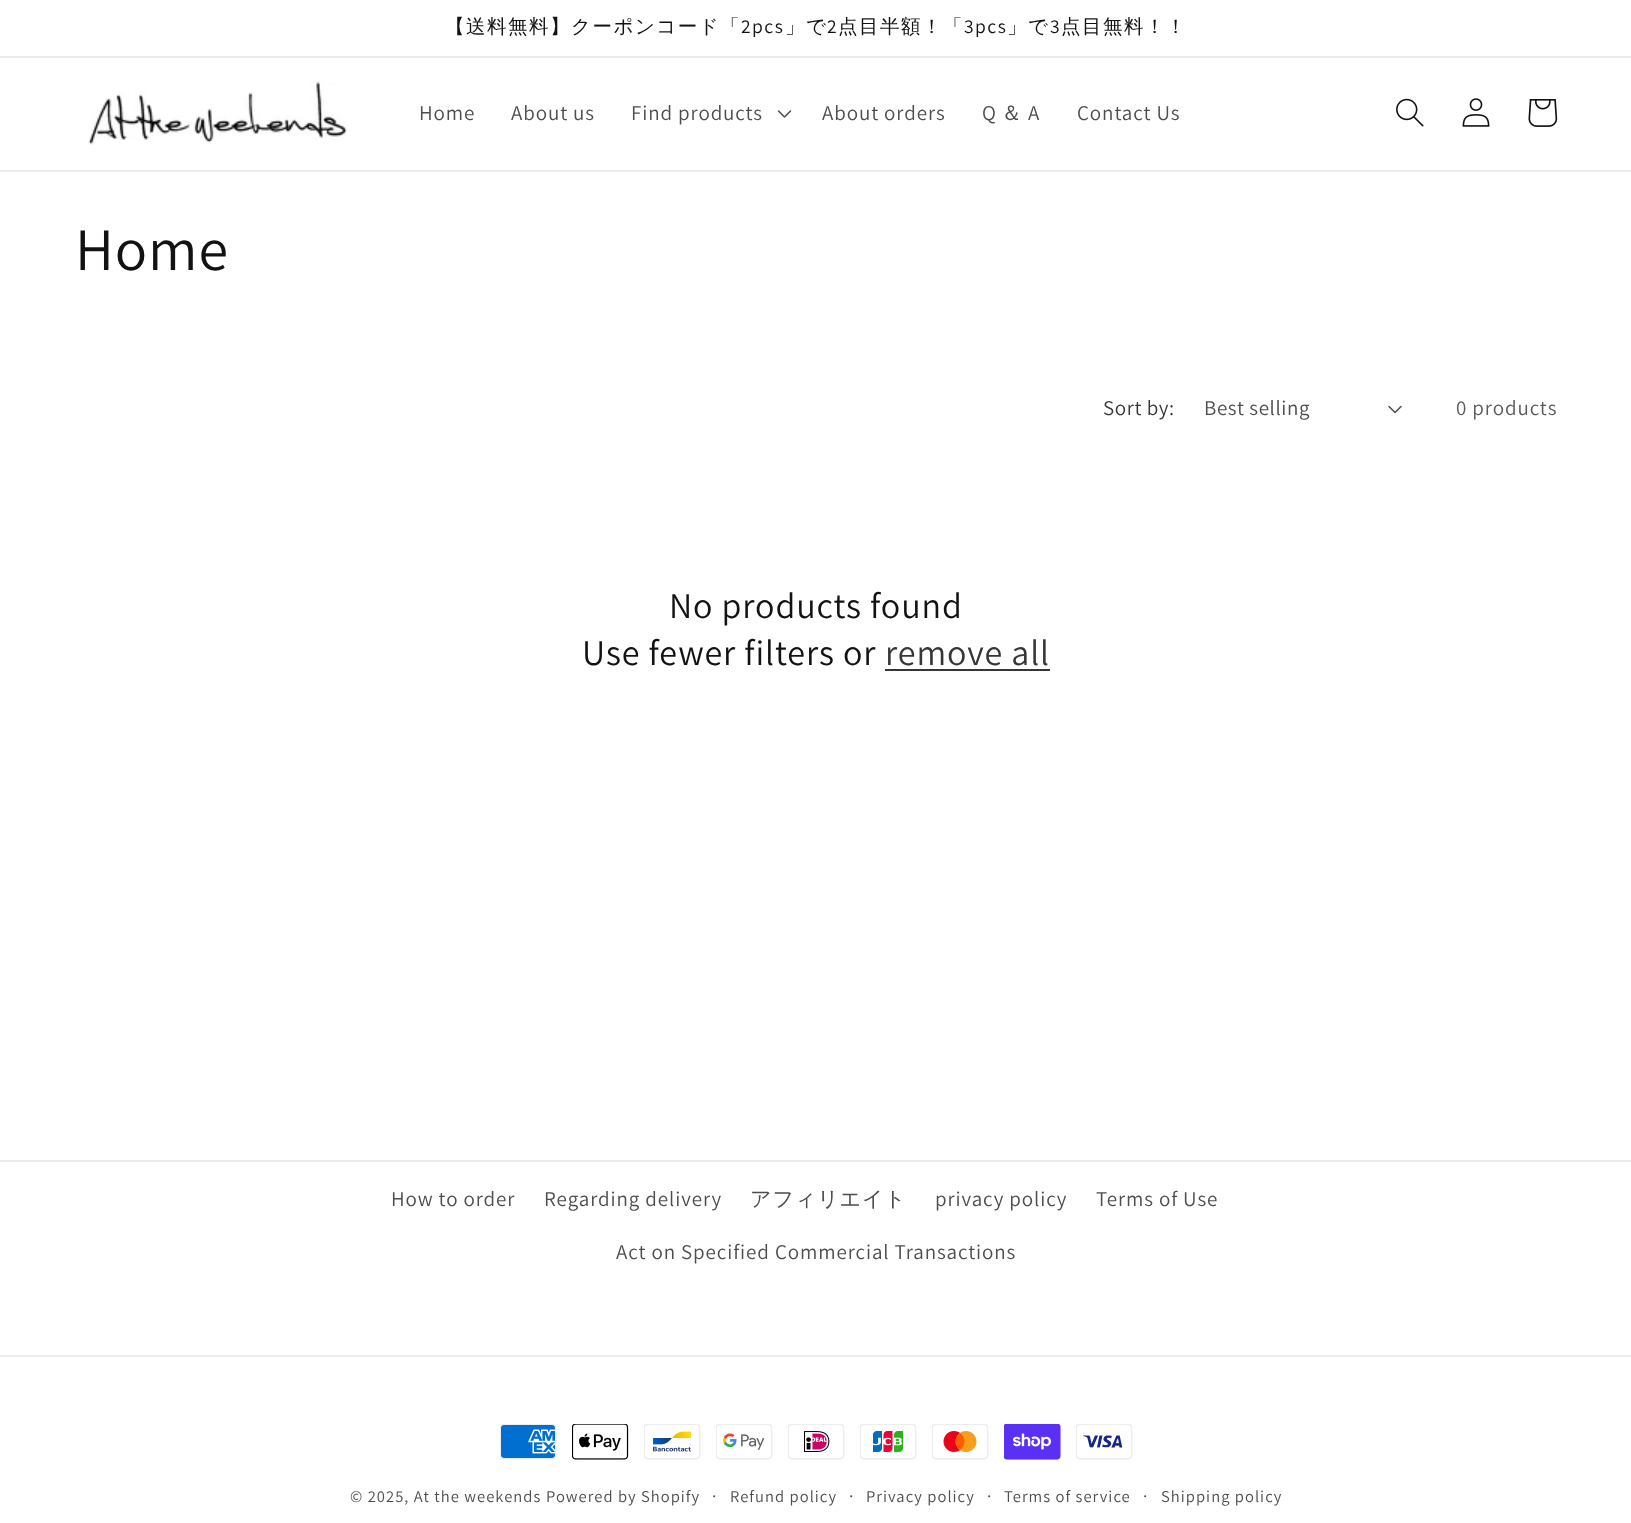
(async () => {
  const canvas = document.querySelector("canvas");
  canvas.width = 1631;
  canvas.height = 1523;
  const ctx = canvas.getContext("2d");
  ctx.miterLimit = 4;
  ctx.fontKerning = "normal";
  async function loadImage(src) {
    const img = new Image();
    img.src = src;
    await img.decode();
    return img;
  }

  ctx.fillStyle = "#ffffff";
  ctx.fillRect(0, 0, 1631, 1523);
  ctx.fillStyle = "#ececec";
  ctx.fillRect(0, 56, 1631, 2);
  ctx.fillRect(0, 170, 1631, 2);
  ctx.drawImage(await loadImage("img/1.png"), 88, 81, 259, 64);
  ctx.drawImage(await loadImage("img/2.png"), 777, 110, 15, 8);
  ctx.drawImage(await loadImage("img/3.png"), 1396, 98, 28, 29);
  ctx.drawImage(await loadImage("img/4.png"), 1462, 98, 28, 29);
  ctx.drawImage(await loadImage("img/5.png"), 1528, 99, 30, 28);
  ctx.drawImage(await loadImage("img/6.png"), 1388, 405, 14, 9);
  for (const [x, y, w, h, color] of [
    [885, 669, 165, 2, "#363636"],
    [0, 1160, 1631, 2, "#ececec"],
    [0, 1355, 1631, 2, "#ececec"],
  ]) {
    ctx.fillStyle = color;
    ctx.fillRect(x, y, w, h);
  }
  ctx.drawImage(await loadImage("img/7.png"), 500, 1424, 57, 36);
  ctx.drawImage(await loadImage("img/8.png"), 572, 1424, 57, 36);
  ctx.drawImage(await loadImage("img/9.png"), 644, 1424, 57, 36);
  ctx.drawImage(await loadImage("img/10.png"), 716, 1424, 57, 36);
  ctx.drawImage(await loadImage("img/11.png"), 788, 1424, 57, 36);
  ctx.drawImage(await loadImage("img/12.png"), 860, 1424, 57, 36);
  ctx.drawImage(await loadImage("img/13.png"), 932, 1424, 57, 36);
  ctx.drawImage(await loadImage("img/14.png"), 1004, 1424, 57, 36);
  ctx.drawImage(await loadImage("img/15.png"), 1076, 1424, 57, 36);
  ctx.letterSpacing = "1.5px";
  ctx.font = "500 19.5px WenQuanYi Zen Hei";
  ctx.fillStyle = "#121212";
  ctx.fillText("【送料無料】クーポンコード「", 445, 33);
  ctx.font = "19.5px Assistant";
  ctx.fillText("2pcs", 741, 33);
  ctx.font = "500 19.5px WenQuanYi Zen Hei";
  ctx.fillText("」で", 785, 33);
  ctx.font = "19.5px Assistant";
  ctx.fillText("2", 827, 33);
  ctx.font = "500 19.5px WenQuanYi Zen Hei";
  ctx.fillText("点目半額！「", 838, 33);
  ctx.font = "19.5px Assistant";
  ctx.fillText("3pcs", 964, 33);
  ctx.font = "500 19.5px WenQuanYi Zen Hei";
  ctx.fillText("」で", 1007, 33);
  ctx.font = "19.5px Assistant";
  ctx.fillText("3", 1050, 33);
  ctx.font = "500 19.5px WenQuanYi Zen Hei";
  ctx.fillText("点目無料！！", 1061, 33);
  ctx.letterSpacing = "0.9px";
  ctx.font = "21px Assistant";
  ctx.fillStyle = "#4d4d4d";
  for (const [text, x, y] of [
    ["Home", 419, 120],
    ["About us", 511, 120],
    ["Find products", 631, 120],
    ["About orders", 822, 120],
    ["Q", 982, 120],
  ]) {
    ctx.fillText(text, x, y);
  }
  ctx.font = "500 21px WenQuanYi Zen Hei";
  ctx.fillText("＆", 1001, 120);
  ctx.font = "21px Assistant";
  ctx.fillText("A", 1028, 120);
  ctx.fillText("Contact Us", 1077, 120);
  ctx.font = "60px Assistant";
  ctx.fillStyle = "#121212";
  ctx.fillText("Home", 75, 270);
  ctx.letterSpacing = "0.6px";
  ctx.font = "21px Assistant";
  ctx.fillStyle = "#363636";
  ctx.fillText("Sort by:", 1103, 415);
  ctx.fillStyle = "#4d4d4d";
  ctx.fillText("Best selling", 1204, 415);
  ctx.letterSpacing = "0.9px";
  ctx.fillStyle = "#595959";
  ctx.fillText("0 products", 1456, 415);
  ctx.font = "36px Assistant";
  ctx.fillStyle = "#121212";
  ctx.fillText("No products found", 669, 618);
  ctx.fillText("Use fewer filters or", 582, 665);
  ctx.fillStyle = "#363636";
  ctx.fillText("remove all", 885, 665);
  ctx.font = "21px Assistant";
  ctx.fillStyle = "#4d4d4d";
  ctx.fillText("How to order", 391, 1206);
  ctx.fillText("Regarding delivery", 544, 1206);
  ctx.font = "500 21px WenQuanYi Zen Hei";
  ctx.fillText("アフィリエイト", 750, 1206);
  ctx.font = "21px Assistant";
  for (const [text, x, y] of [
    ["privacy policy", 935, 1206],
    ["Terms of Use", 1096, 1206],
    ["Act on Specified Commercial Transactions", 616, 1259],
  ]) {
    ctx.fillText(text, x, y);
  }
  ctx.letterSpacing = "1.05px";
  ctx.font = "16.5px Assistant";
  ctx.fillText("© 2025, At the weekends", 350, 1502);
  ctx.fillText("Powered by Shopify", 546, 1502);
  ctx.font = "18px Assistant";
  ctx.fillText("·", 712, 1502);
  ctx.font = "16.5px Assistant";
  ctx.fillText("Refund policy", 730, 1502);
  ctx.font = "18px Assistant";
  ctx.fillText("·", 849, 1502);
  ctx.font = "16.5px Assistant";
  ctx.fillText("Privacy policy", 866, 1502);
  ctx.font = "18px Assistant";
  ctx.fillText("·", 987, 1502);
  ctx.font = "16.5px Assistant";
  ctx.fillText("Terms of service", 1004, 1502);
  ctx.font = "18px Assistant";
  ctx.fillText("·", 1143, 1502);
  ctx.font = "16.5px Assistant";
  ctx.fillText("Shipping policy", 1161, 1502);
})();
